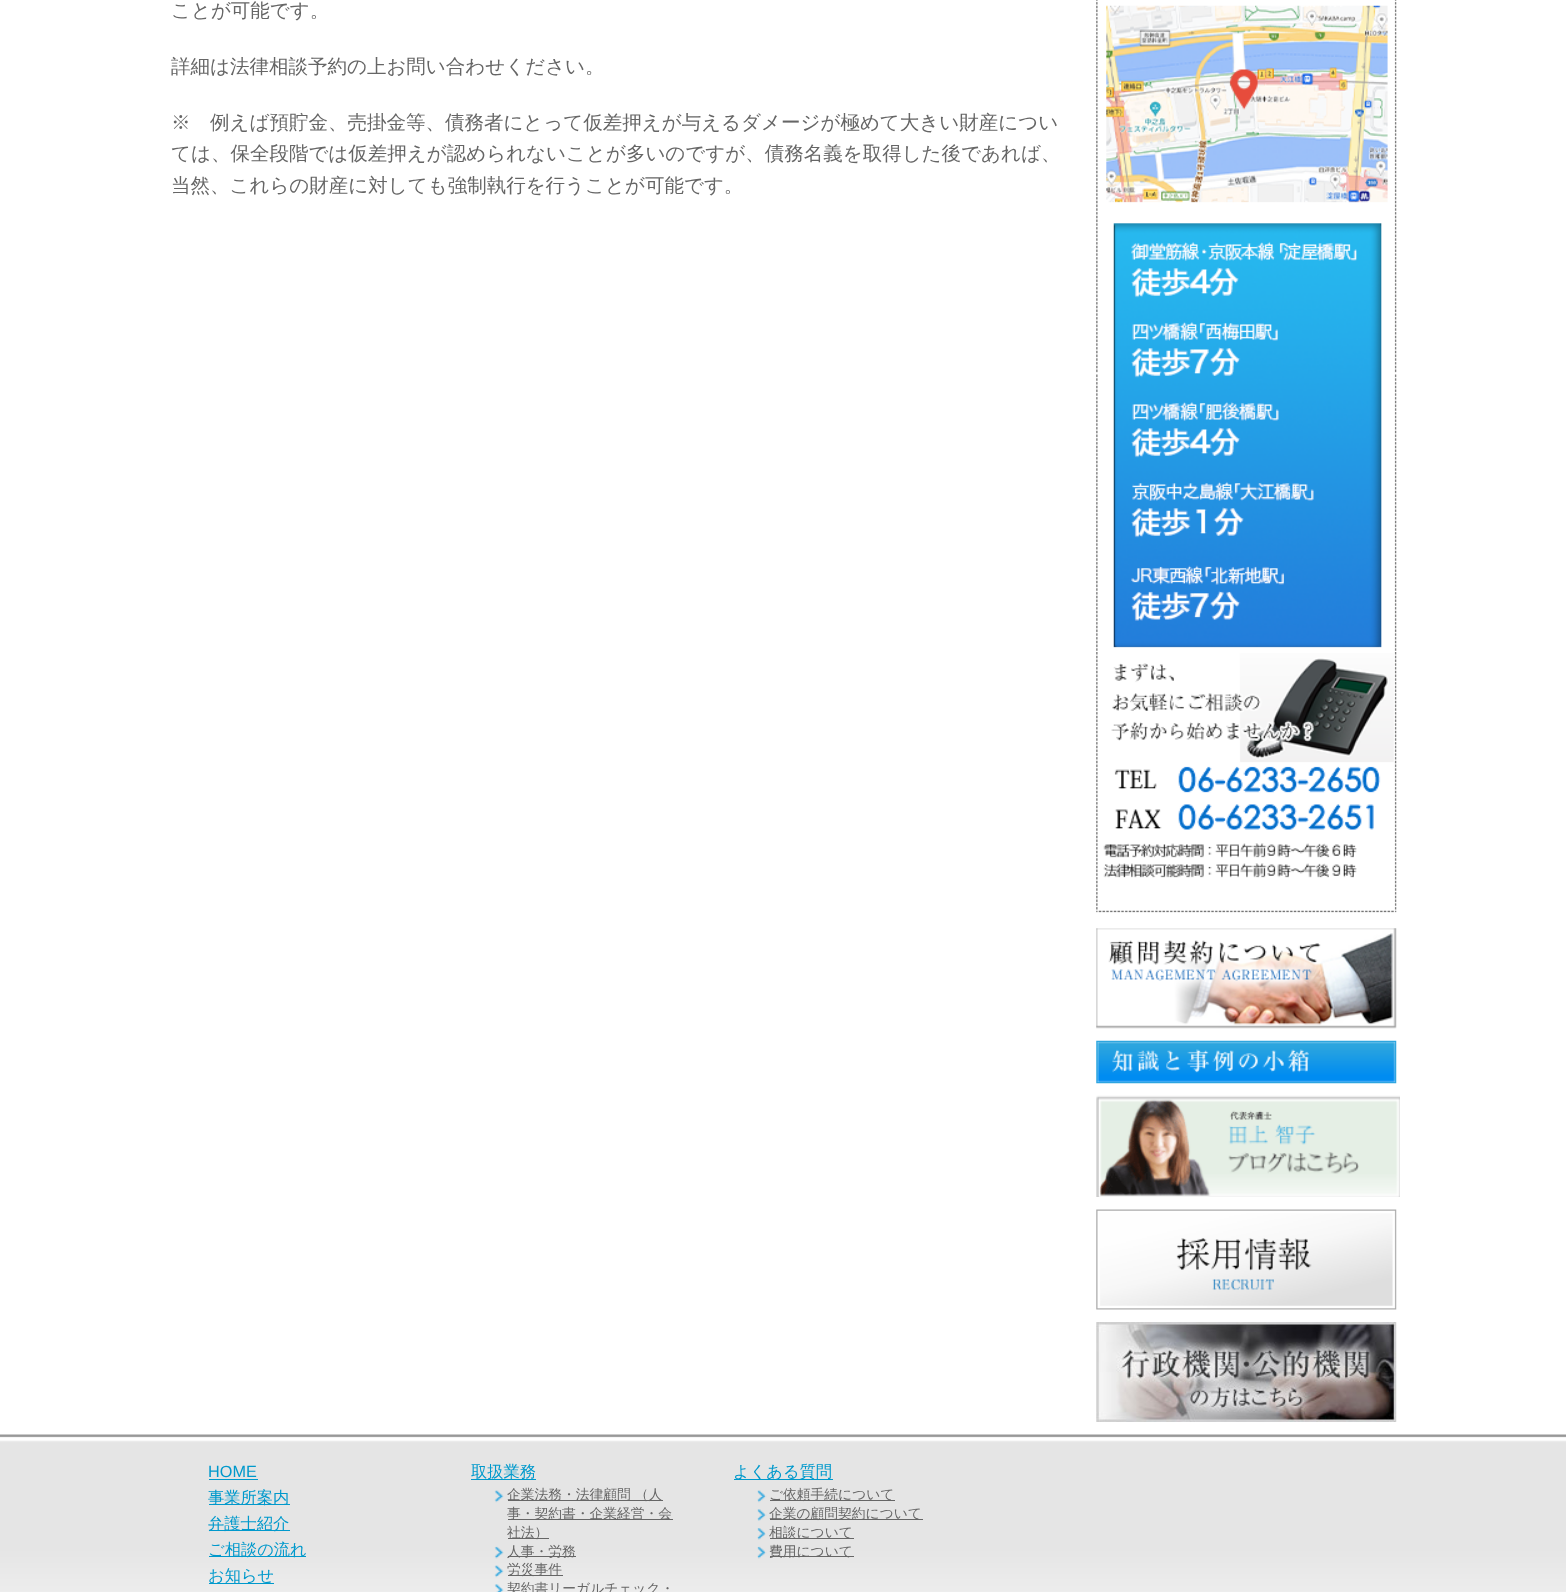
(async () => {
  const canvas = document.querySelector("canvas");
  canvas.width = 1566;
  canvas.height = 1592;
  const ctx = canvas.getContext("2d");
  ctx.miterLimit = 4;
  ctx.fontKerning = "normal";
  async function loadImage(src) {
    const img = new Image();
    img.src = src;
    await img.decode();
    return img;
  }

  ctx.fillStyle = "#ffffff";
  ctx.fillRect(0, 0, 1566, 1592);
  ctx.drawImage(await loadImage("img/1.png"), 1096, 0, 301, 215);
  ctx.drawImage(await loadImage("img/2.png"), 1096, 215, 301, 436);
  ctx.drawImage(await loadImage("img/3.png"), 1096, 652, 301, 261);
  ctx.drawImage(await loadImage("img/4.png"), 1096, 928, 301, 101);
  ctx.drawImage(await loadImage("img/5.png"), 1096, 1040, 301, 44);
  ctx.drawImage(await loadImage("img/6.png"), 1096, 1095, 304, 102);
  ctx.drawImage(await loadImage("img/7.png"), 1096, 1209, 301, 101);
  ctx.drawImage(await loadImage("img/8.png"), 1096, 1322, 301, 100);
  ctx.drawImage(await loadImage("img/9.png"), 0, 1434, 1566, 158);
  for (const [x, y, w, h, color] of [
    [209, 1479, 49, 1, "#0099cc"],
    [209, 1504, 81, 1, "#0099cc"],
    [209, 1530, 81, 1, "#0099cc"],
    [209, 1556, 97, 1, "#0099cc"],
    [209, 1583, 65, 1, "#0099cc"],
    [471, 1479, 65, 1, "#0099cc"],
  ]) {
    ctx.fillStyle = color;
    ctx.fillRect(x, y, w, h);
  }
  ctx.drawImage(await loadImage("img/10.png"), 494, 1490, 10, 13);
  for (const [x, y, w, h, color] of [
    [508, 1500, 155, 1, "#666666"],
    [508, 1519, 165, 1, "#666666"],
    [508, 1538, 41, 1, "#666666"],
  ]) {
    ctx.fillStyle = color;
    ctx.fillRect(x, y, w, h);
  }
  ctx.drawImage(await loadImage("img/11.png"), 494, 1546, 10, 13);
  ctx.fillRect(508, 1556, 68, 1);
  ctx.drawImage(await loadImage("img/12.png"), 494, 1565, 10, 13);
  ctx.fillRect(508, 1575, 55, 1);
  ctx.drawImage(await loadImage("img/13.png"), 494, 1584, 10, 8);
  ctx.fillStyle = "#0099cc";
  ctx.fillRect(734, 1479, 99, 1);
  ctx.drawImage(await loadImage("img/14.png"), 757, 1490, 10, 13);
  ctx.fillStyle = "#666666";
  ctx.fillRect(770, 1500, 125, 1);
  ctx.drawImage(await loadImage("img/15.png"), 757, 1509, 10, 12);
  ctx.fillRect(770, 1519, 153, 1);
  ctx.drawImage(await loadImage("img/16.png"), 757, 1528, 9, 12);
  ctx.fillRect(770, 1538, 84, 1);
  ctx.drawImage(await loadImage("img/17.png"), 757, 1546, 10, 13);
  ctx.fillRect(770, 1556, 84, 1);
  ctx.font = "500 19.5px WenQuanYi Zen Hei";
  for (const [text, x, y] of [
    ["ことが可能です。", 171, 17],
    ["詳細は法律相談予約の上お問い合わせください。", 171, 73],
    ["※　例えば預貯金、売掛金等、債務者にとって仮差押えが与えるダメージが極めて大きい財産につい", 171, 129],
    ["ては、保全段階では仮差押えが認められないことが多いのですが、債務名義を取得した後であれば、", 171, 160],
    ["当然、これらの財産に対しても強制執行を行うことが可能です。", 171, 192],
  ]) {
    ctx.fillText(text, x, y);
  }
  ctx.font = "16.25px Liberation Sans";
  ctx.fillStyle = "#0099cc";
  ctx.fillText("HOME", 208, 1477);
  ctx.font = "500 16.25px WenQuanYi Zen Hei";
  for (const [text, x, y] of [
    ["事業所案内", 208, 1503],
    ["弁護士紹介", 208, 1529],
    ["ご相談の流れ", 208, 1555],
    ["お知らせ", 208, 1581],
    ["取扱業務", 471, 1477],
  ]) {
    ctx.fillText(text, x, y);
  }
  ctx.font = "500 13.75px WenQuanYi Zen Hei";
  ctx.fillStyle = "#666666";
  for (const [text, x, y] of [
    ["企業法務・法律顧問 （人", 507, 1499],
    ["事・契約書・企業経営・会", 507, 1518],
    ["社法）", 507, 1537],
    ["人事・労務", 507, 1556],
    ["労災事件", 507, 1574],
    ["契約書リーガルチェック・", 507, 1593],
  ]) {
    ctx.fillText(text, x, y);
  }
  ctx.font = "500 16.25px WenQuanYi Zen Hei";
  ctx.fillStyle = "#0099cc";
  ctx.fillText("よくある質問", 733, 1477);
  ctx.font = "500 13.75px WenQuanYi Zen Hei";
  ctx.fillStyle = "#666666";
  for (const [text, x, y] of [
    ["ご依頼手続について", 769, 1499],
    ["企業の顧問契約について", 769, 1518],
    ["相談について", 769, 1537],
    ["費用について", 769, 1556],
  ]) {
    ctx.fillText(text, x, y);
  }
})();
